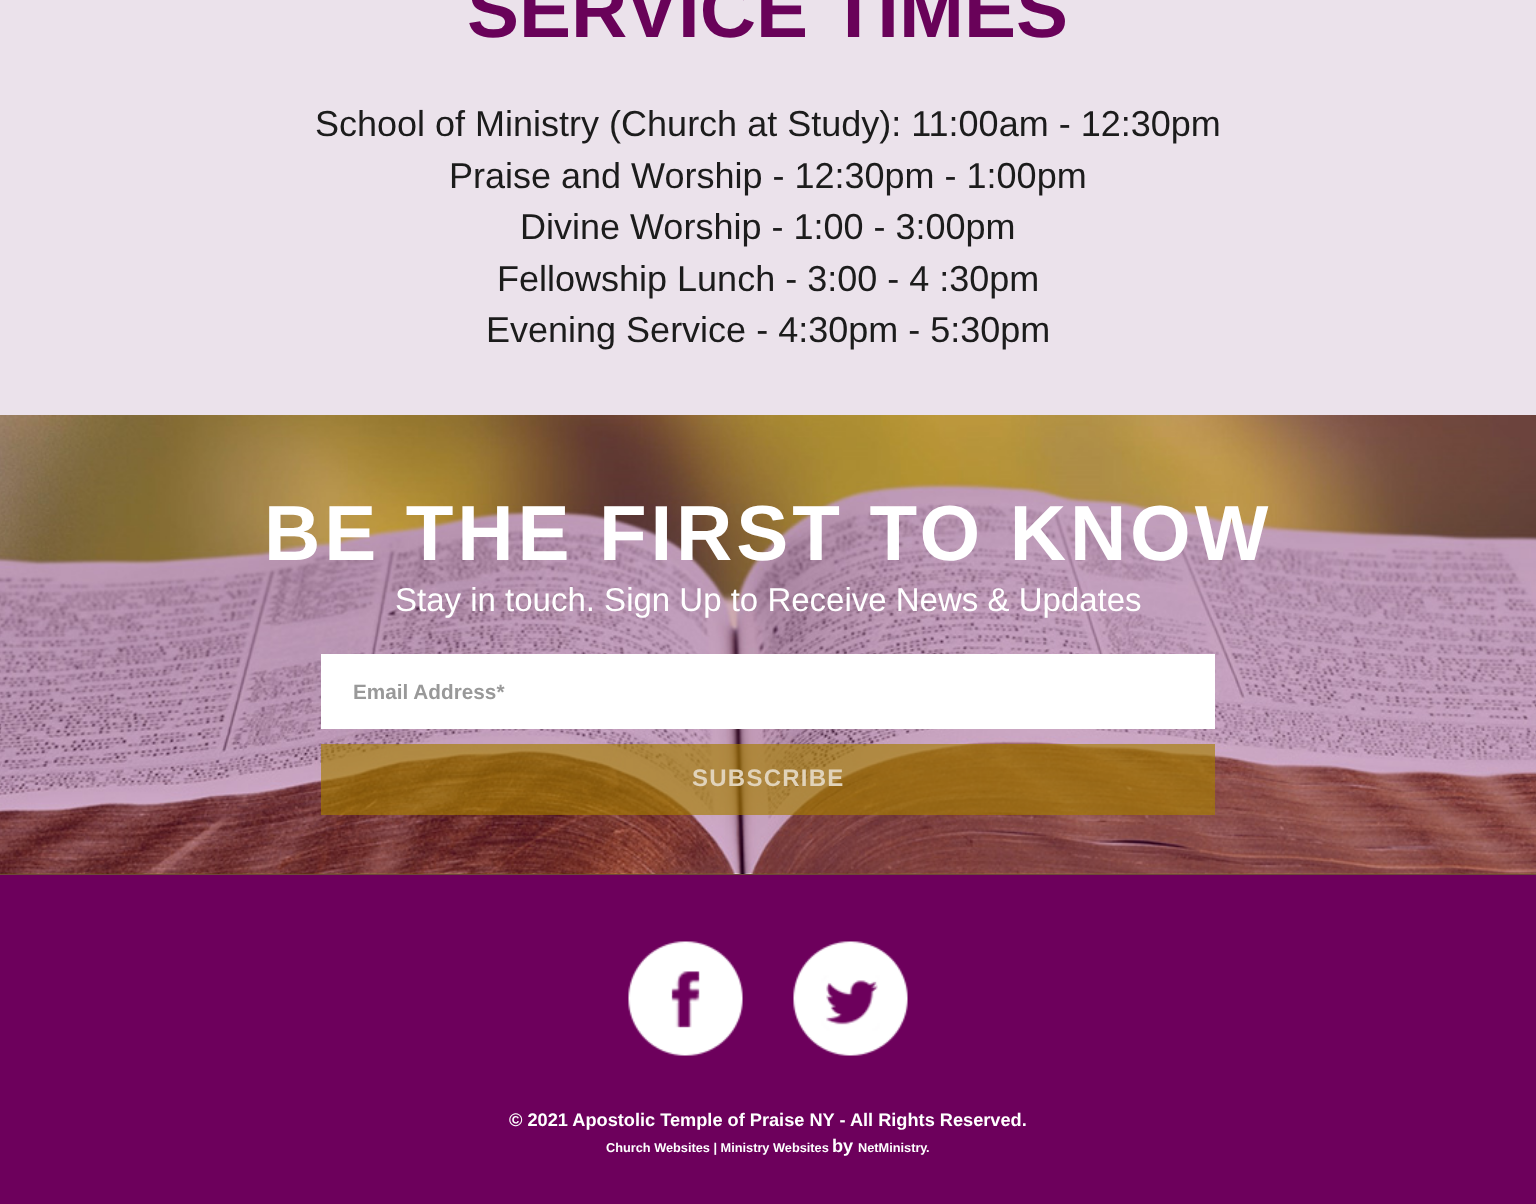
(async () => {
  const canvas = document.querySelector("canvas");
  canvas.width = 1536;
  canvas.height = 1204;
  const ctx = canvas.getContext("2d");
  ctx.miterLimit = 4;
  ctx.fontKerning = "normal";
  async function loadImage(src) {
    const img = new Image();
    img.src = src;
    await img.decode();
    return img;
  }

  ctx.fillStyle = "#6d005c";
  ctx.fillRect(0, 0, 1536, 1204);
  ctx.fillStyle = "#ebe2eb";
  ctx.fillRect(0, 0, 1536, 415);
  ctx.fillStyle = "#6e463c";
  ctx.fillRect(0, 874, 1536, 1);
  ctx.drawImage(await loadImage("img/1.png"), 0, 415, 1536, 459);
  ctx.fillStyle = "#ffffff";
  ctx.fillRect(321, 654, 894, 75);
  ctx.fillStyle = "rgba(165, 125, 0, 0.65)";
  ctx.fillRect(321, 744, 894, 71);
  ctx.drawImage(await loadImage("img/2.png"), 628, 941, 115, 115);
  ctx.drawImage(await loadImage("img/3.png"), 793, 941, 115, 115);
  ctx.font = "bold 78px Liberation Sans";
  ctx.fillStyle = "#690259";
  ctx.fillText("SERVICE TIMES", 467, 37);
  ctx.font = "36px Liberation Sans";
  ctx.fillStyle = "#1c1c1c";
  for (const [text, x, y] of [
    ["School of Ministry (Church at Study): 11:00am - 12:30pm", 315, 136],
    ["Praise and Worship - 12:30pm - 1:00pm", 449, 188],
    ["Divine Worship - 1:00 - 3:00pm", 520, 239],
    ["Fellowship Lunch - 3:00 - 4 :30pm", 497, 291],
    ["Evening Service - 4:30pm - 5:30pm", 486, 342],
  ]) {
    ctx.fillText(text, x, y);
  }
  ctx.letterSpacing = "3.9px";
  ctx.font = "bold 78px Liberation Sans";
  ctx.fillStyle = "#ffffff";
  ctx.fillText("BE THE FIRST TO KNOW", 264, 560);
  ctx.letterSpacing = "0px";
  ctx.font = "33px Liberation Sans";
  ctx.fillText("Stay in touch. Sign Up to Receive News & Updates", 395, 611);
  ctx.font = "bold 20.75px Liberation Sans";
  ctx.fillStyle = "#999999";
  ctx.fillText("Email Address*", 353, 699);
  ctx.letterSpacing = "1.25px";
  ctx.font = "bold 24px Liberation Sans";
  ctx.fillStyle = "#e1d3ba";
  ctx.fillText("SUBSCRIBE", 692, 786);
  ctx.letterSpacing = "0px";
  ctx.font = "bold 18.2px Liberation Sans";
  ctx.fillStyle = "#ffffff";
  ctx.fillText("© 2021 Apostolic Temple of Praise NY - All Rights Reserved.", 509, 1126);
  ctx.font = "bold 12.75px Liberation Sans";
  ctx.fillText("Church Websites | Ministry Websites", 606, 1152);
  ctx.font = "bold 18.2px Liberation Sans";
  ctx.fillText("by", 832, 1152);
  ctx.font = "bold 12.75px Liberation Sans";
  ctx.fillText("NetMinistry", 858, 1152);
  ctx.fillText(".", 926, 1152);
})();
